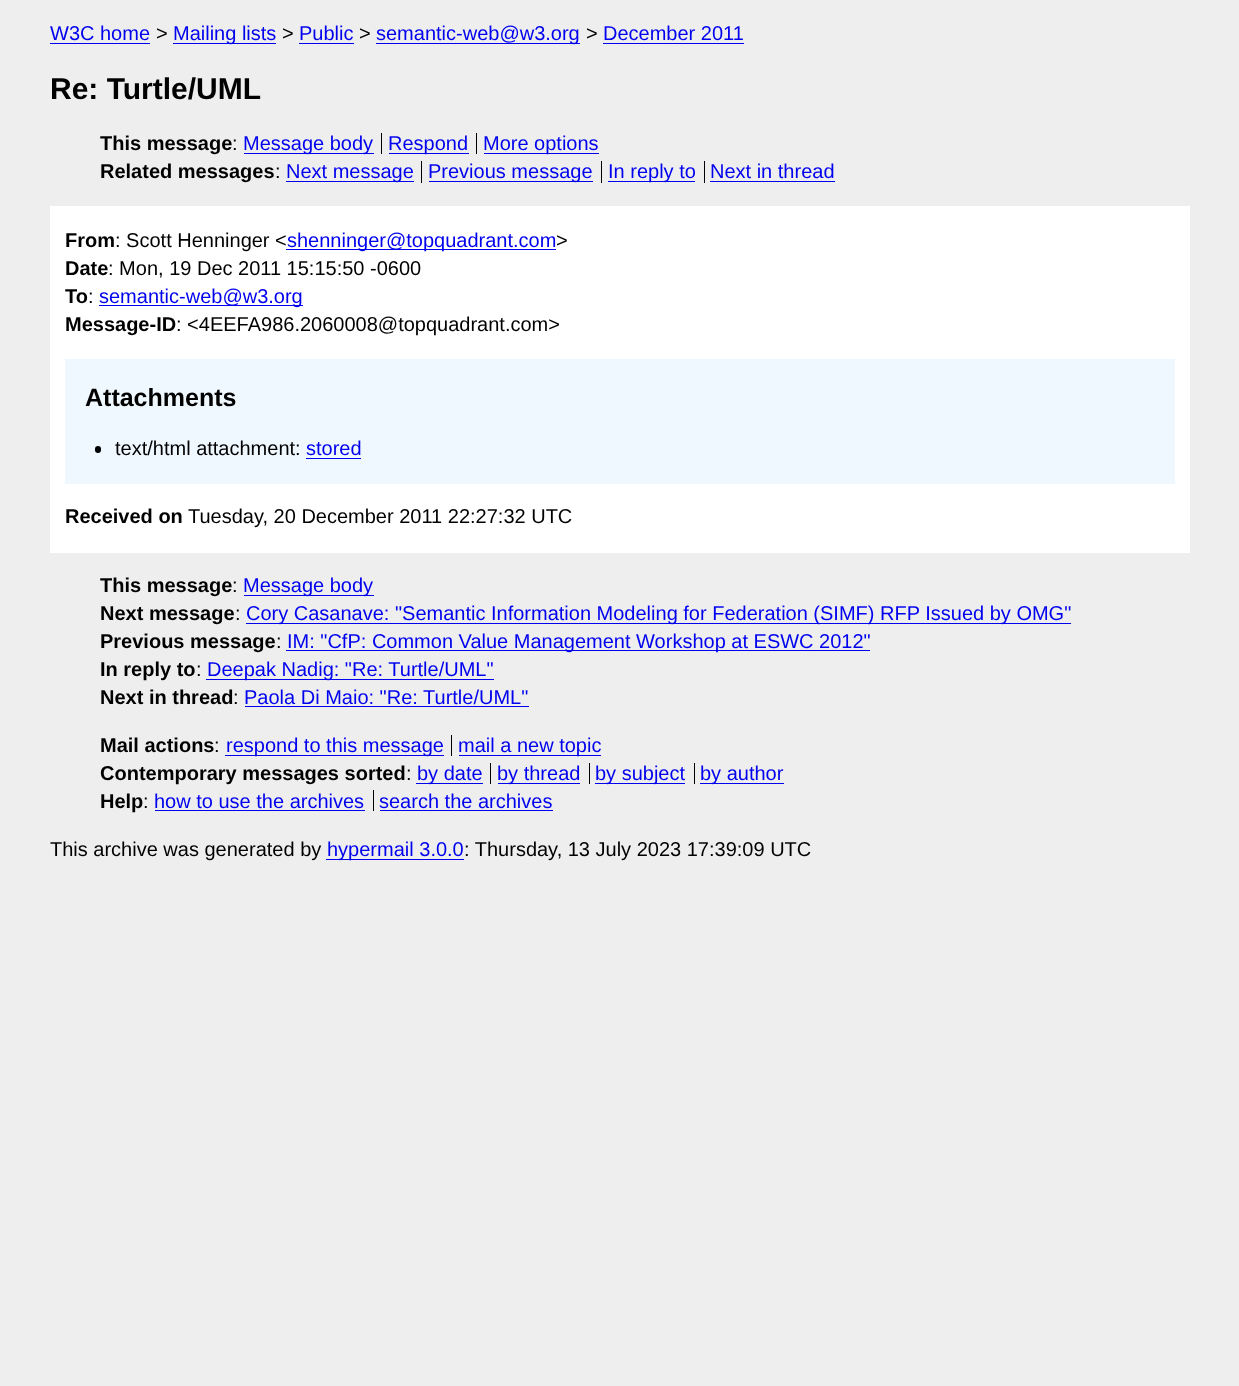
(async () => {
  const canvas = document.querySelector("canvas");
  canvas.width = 1239;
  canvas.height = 1386;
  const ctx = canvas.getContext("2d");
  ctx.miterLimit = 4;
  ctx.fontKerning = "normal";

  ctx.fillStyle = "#eeeeee";
  ctx.fillRect(0, 0, 1239, 1386);
  for (const [x, y, w, h, color] of [
    [50, 43, 100, 1, "#0000ee"],
    [173, 43, 103, 1, "#0000ee"],
    [299, 43, 55, 1, "#0000ee"],
    [376, 43, 204, 1, "#0000ee"],
    [603, 43, 141, 1, "#0000ee"],
    [381, 133, 1, 21, "#000000"],
    [244, 153, 130, 1, "#0000ee"],
    [389, 153, 80, 1, "#0000ee"],
    [476, 133, 1, 21, "#000000"],
    [484, 153, 115, 1, "#0000ee"],
    [286, 181, 128, 1, "#0000ee"],
    [421, 161, 1, 22, "#000000"],
    [429, 181, 164, 1, "#0000ee"],
    [601, 161, 1, 22, "#000000"],
    [608, 181, 87, 1, "#0000ee"],
    [704, 161, 1, 22, "#000000"],
    [710, 181, 125, 1, "#0000ee"],
    [50, 206, 1140, 347, "#ffffff"],
    [286, 249, 270, 1, "#0000ee"],
    [99, 305, 204, 1, "#0000ee"],
    [65, 359, 1110, 125, "#f0f8ff"],
  ]) {
    ctx.fillStyle = color;
    ctx.fillRect(x, y, w, h);
  }
  ctx.fillStyle = "#000000";
  ctx.beginPath();
  ctx.roundRect(95, 446, 6, 7, 3);
  ctx.fill();
  for (const [x, y, w, h, color] of [
    [306, 458, 55, 1, "#0000ee"],
    [244, 595, 130, 1, "#0000ee"],
    [246, 623, 825, 1, "#0000ee"],
    [286, 650, 584, 1, "#0000ee"],
    [206, 679, 288, 1, "#0000ee"],
    [245, 706, 284, 1, "#0000ee"],
    [225, 755, 219, 1, "#0000ee"],
    [451, 735, 1, 21, "#000000"],
    [459, 755, 142, 1, "#0000ee"],
    [416, 783, 67, 1, "#0000ee"],
    [490, 763, 1, 21, "#000000"],
    [498, 783, 82, 1, "#0000ee"],
    [589, 763, 1, 21, "#000000"],
    [595, 783, 90, 1, "#0000ee"],
    [694, 763, 1, 21, "#000000"],
    [700, 783, 84, 1, "#0000ee"],
    [155, 810, 210, 1, "#0000ee"],
    [373, 790, 1, 21, "#000000"],
    [380, 810, 173, 1, "#0000ee"],
    [326, 859, 138, 1, "#0000ee"],
  ]) {
    ctx.fillStyle = color;
    ctx.fillRect(x, y, w, h);
  }
  ctx.font = "20px Liberation Sans";
  ctx.fillText("W3C home", 50, 40);
  ctx.fillStyle = "#000000";
  ctx.fillText(">", 156, 40);
  ctx.fillStyle = "#0000ee";
  ctx.fillText("Mailing lists", 173, 40);
  ctx.fillStyle = "#000000";
  ctx.fillText(">", 282, 40);
  ctx.fillStyle = "#0000ee";
  ctx.fillText("Public", 299, 40);
  ctx.fillStyle = "#000000";
  ctx.fillText(">", 359, 40);
  ctx.fillStyle = "#0000ee";
  ctx.fillText("semantic-web@w3.org", 376, 40);
  ctx.fillStyle = "#000000";
  ctx.fillText(">", 586, 40);
  ctx.fillStyle = "#0000ee";
  ctx.fillText("December 2011", 603, 40);
  ctx.font = "bold 30px Liberation Sans";
  ctx.fillStyle = "#000000";
  ctx.fillText("Re: Turtle/UML", 50, 99);
  ctx.font = "bold 20px Liberation Sans";
  ctx.fillText("This message", 100, 150);
  ctx.font = "20px Liberation Sans";
  ctx.fillText(":", 232, 150);
  ctx.fillStyle = "#0000ee";
  for (const [text, x, y] of [
    ["Message body", 243, 150],
    ["Respond", 388, 150],
    ["More options", 483, 150],
  ]) {
    ctx.fillText(text, x, y);
  }
  ctx.font = "bold 20px Liberation Sans";
  ctx.fillStyle = "#000000";
  ctx.fillText("Related messages", 100, 178);
  ctx.font = "20px Liberation Sans";
  ctx.fillText(":", 275, 178);
  ctx.fillStyle = "#0000ee";
  for (const [text, x, y] of [
    ["Next message", 286, 178],
    ["Previous message", 428, 178],
    ["In reply to", 608, 178],
    ["Next in thread", 710, 178],
  ]) {
    ctx.fillText(text, x, y);
  }
  ctx.font = "bold 20px Liberation Sans";
  ctx.fillStyle = "#000000";
  ctx.fillText("From", 65, 247);
  ctx.font = "20px Liberation Sans";
  ctx.fillText(": Scott Henninger <", 115, 247);
  ctx.fillStyle = "#0000ee";
  ctx.fillText("shenninger@topquadrant.com", 287, 247);
  ctx.fillStyle = "#000000";
  ctx.fillText(">", 556, 247);
  ctx.font = "bold 20px Liberation Sans";
  ctx.fillText("Date", 65, 275);
  ctx.font = "20px Liberation Sans";
  ctx.fillText(": Mon, 19 Dec 2011 15:15:50 -0600", 108, 275);
  ctx.font = "bold 20px Liberation Sans";
  ctx.fillText("To", 65, 303);
  ctx.font = "20px Liberation Sans";
  ctx.fillText(":", 88, 303);
  ctx.fillStyle = "#0000ee";
  ctx.fillText("semantic-web@w3.org", 99, 303);
  ctx.font = "bold 20px Liberation Sans";
  ctx.fillStyle = "#000000";
  ctx.fillText("Message-ID", 65, 331);
  ctx.font = "20px Liberation Sans";
  ctx.fillText(": <4EEFA986.2060008@topquadrant.com>", 176, 331);
  ctx.font = "bold 25px Liberation Sans";
  ctx.fillText("Attachments", 85, 406);
  ctx.font = "20px Liberation Sans";
  ctx.fillText("text/html attachment:", 115, 455);
  ctx.fillStyle = "#0000ee";
  ctx.fillText("stored", 306, 455);
  ctx.font = "bold 20px Liberation Sans";
  ctx.fillStyle = "#000000";
  ctx.fillText("Received on", 65, 523);
  ctx.font = "20px Liberation Sans";
  ctx.fillText("Tuesday, 20 December 2011 22:27:32 UTC", 188, 523);
  ctx.font = "bold 20px Liberation Sans";
  ctx.fillText("This message", 100, 592);
  ctx.font = "20px Liberation Sans";
  ctx.fillText(":", 232, 592);
  ctx.fillStyle = "#0000ee";
  ctx.fillText("Message body", 243, 592);
  ctx.font = "bold 20px Liberation Sans";
  ctx.fillStyle = "#000000";
  ctx.fillText("Next message", 100, 620);
  ctx.font = "20px Liberation Sans";
  ctx.fillText(":", 235, 620);
  ctx.fillStyle = "#0000ee";
  ctx.fillText("Cory Casanave: \"Semantic Information Modeling for Federation (SIMF) RFP Issued by OMG\"", 246, 620);
  ctx.font = "bold 20px Liberation Sans";
  ctx.fillStyle = "#000000";
  ctx.fillText("Previous message", 100, 648);
  ctx.font = "20px Liberation Sans";
  ctx.fillText(":", 276, 648);
  ctx.fillStyle = "#0000ee";
  ctx.fillText("IM: \"CfP: Common Value Management Workshop at ESWC 2012\"", 287, 648);
  ctx.font = "bold 20px Liberation Sans";
  ctx.fillStyle = "#000000";
  ctx.fillText("In reply to", 100, 676);
  ctx.font = "20px Liberation Sans";
  ctx.fillText(":", 196, 676);
  ctx.fillStyle = "#0000ee";
  ctx.fillText("Deepak Nadig: \"Re: Turtle/UML\"", 207, 676);
  ctx.font = "bold 20px Liberation Sans";
  ctx.fillStyle = "#000000";
  ctx.fillText("Next in thread", 100, 704);
  ctx.font = "20px Liberation Sans";
  ctx.fillText(":", 233, 704);
  ctx.fillStyle = "#0000ee";
  ctx.fillText("Paola Di Maio: \"Re: Turtle/UML\"", 244, 704);
  ctx.font = "bold 20px Liberation Sans";
  ctx.fillStyle = "#000000";
  ctx.fillText("Mail actions", 100, 752);
  ctx.font = "20px Liberation Sans";
  ctx.fillText(":", 214, 752);
  ctx.fillStyle = "#0000ee";
  ctx.fillText("respond to this message", 226, 752);
  ctx.fillText("mail a new topic", 458, 752);
  ctx.font = "bold 20px Liberation Sans";
  ctx.fillStyle = "#000000";
  ctx.fillText("Contemporary messages sorted", 100, 780);
  ctx.font = "20px Liberation Sans";
  ctx.fillText(":", 406, 780);
  ctx.fillStyle = "#0000ee";
  for (const [text, x, y] of [
    ["by date", 417, 780],
    ["by thread", 497, 780],
    ["by subject", 595, 780],
    ["by author", 700, 780],
  ]) {
    ctx.fillText(text, x, y);
  }
  ctx.font = "bold 20px Liberation Sans";
  ctx.fillStyle = "#000000";
  ctx.fillText("Help", 100, 808);
  ctx.font = "20px Liberation Sans";
  ctx.fillText(":", 143, 808);
  ctx.fillStyle = "#0000ee";
  ctx.fillText("how to use the archives", 154, 808);
  ctx.fillText("search the archives", 379, 808);
  ctx.fillStyle = "#000000";
  ctx.fillText("This archive was generated by", 50, 856);
  ctx.fillStyle = "#0000ee";
  ctx.fillText("hypermail 3.0.0", 327, 856);
  ctx.fillStyle = "#000000";
  ctx.fillText(": Thursday, 13 July 2023 17:39:09 UTC", 464, 856);
})();
